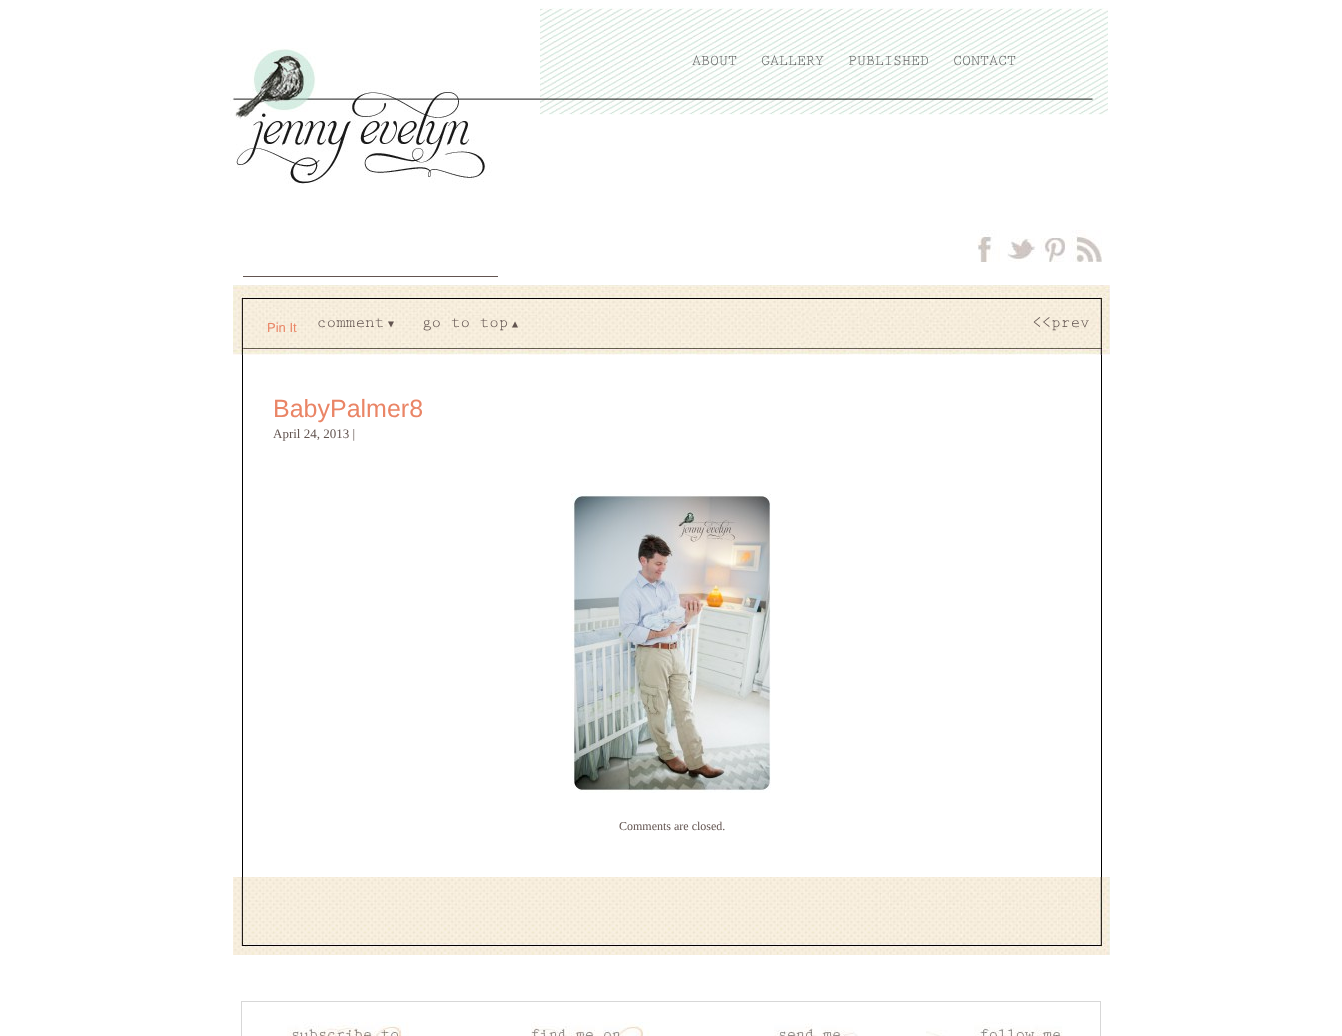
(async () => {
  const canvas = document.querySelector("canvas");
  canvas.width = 1342;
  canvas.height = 1036;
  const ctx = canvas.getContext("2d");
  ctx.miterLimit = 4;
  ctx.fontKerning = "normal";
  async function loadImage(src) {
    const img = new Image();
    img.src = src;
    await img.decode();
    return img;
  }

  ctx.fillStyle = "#ffffff";
  ctx.fillRect(0, 0, 1342, 1036);
  ctx.drawImage(await loadImage("img/1.png"), 230, 48, 310, 136);
  ctx.drawImage(await loadImage("img/2.png"), 540, 8, 568, 107);
  ctx.drawImage(await loadImage("img/3.png"), 977, 230, 23, 32);
  ctx.drawImage(await loadImage("img/4.png"), 1007, 238, 29, 24);
  ctx.drawImage(await loadImage("img/5.png"), 1040, 238, 30, 24);
  ctx.drawImage(await loadImage("img/6.png"), 1070, 230, 32, 32);
  ctx.fillStyle = "#625450";
  ctx.fillRect(243, 276, 255, 1);
  ctx.drawImage(await loadImage("img/7.png"), 233, 285, 877, 70);
  ctx.fillStyle = "#000000";
  ctx.fillRect(1101, 355, 1, 525);
  ctx.fillRect(242, 355, 1, 525);
  ctx.drawImage(await loadImage("img/8.png"), 571, 493, 200, 300);
  ctx.drawImage(await loadImage("img/9.png"), 233, 877, 877, 78);
  ctx.strokeStyle = "#d7d7d7";
  ctx.strokeRect(241.5, 1001.5, 859, 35);
  ctx.drawImage(await loadImage("img/10.png"), 287, 1022, 122, 14);
  ctx.drawImage(await loadImage("img/11.png"), 531, 1022, 119, 14);
  ctx.drawImage(await loadImage("img/12.png"), 774, 1023, 84, 13);
  ctx.drawImage(await loadImage("img/13.png"), 926, 1022, 137, 14);
  ctx.font = "15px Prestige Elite";
  ctx.fillStyle = "#666666";
  for (const [text, x, y] of [
    ["ABOUT", 692, 65],
    ["GALLERY", 761, 65],
    ["PUBLISHED", 848, 65],
    ["CONTACT", 953, 65],
  ]) {
    ctx.fillText(text, x, y);
  }
  ctx.font = "13px Liberation Sans";
  ctx.fillStyle = "#ea8566";
  ctx.fillText("Pin It", 267, 332);
  ctx.font = "16px Prestige Elite";
  ctx.fillStyle = "#625450";
  ctx.fillText("comment", 317, 327);
  ctx.font = "10px DejaVu Sans Mono";
  ctx.fillText("▼", 388, 327);
  ctx.font = "16px Prestige Elite";
  ctx.fillText("go to top", 422, 327);
  ctx.font = "10px DejaVu Sans Mono";
  ctx.fillText("▲", 512, 327);
  ctx.font = "16px Prestige Elite";
  ctx.fillText("<<prev", 1032, 327);
  ctx.font = "25px Liberation Sans";
  ctx.fillStyle = "#ea8566";
  ctx.fillText("BabyPalmer8", 273, 417);
  ctx.font = "13px Liberation Serif";
  ctx.fillStyle = "#625450";
  ctx.fillText("April 24, 2013 |", 273, 438);
  ctx.font = "12px Liberation Serif";
  ctx.fillText("Comments are closed.", 619, 830);
})();
